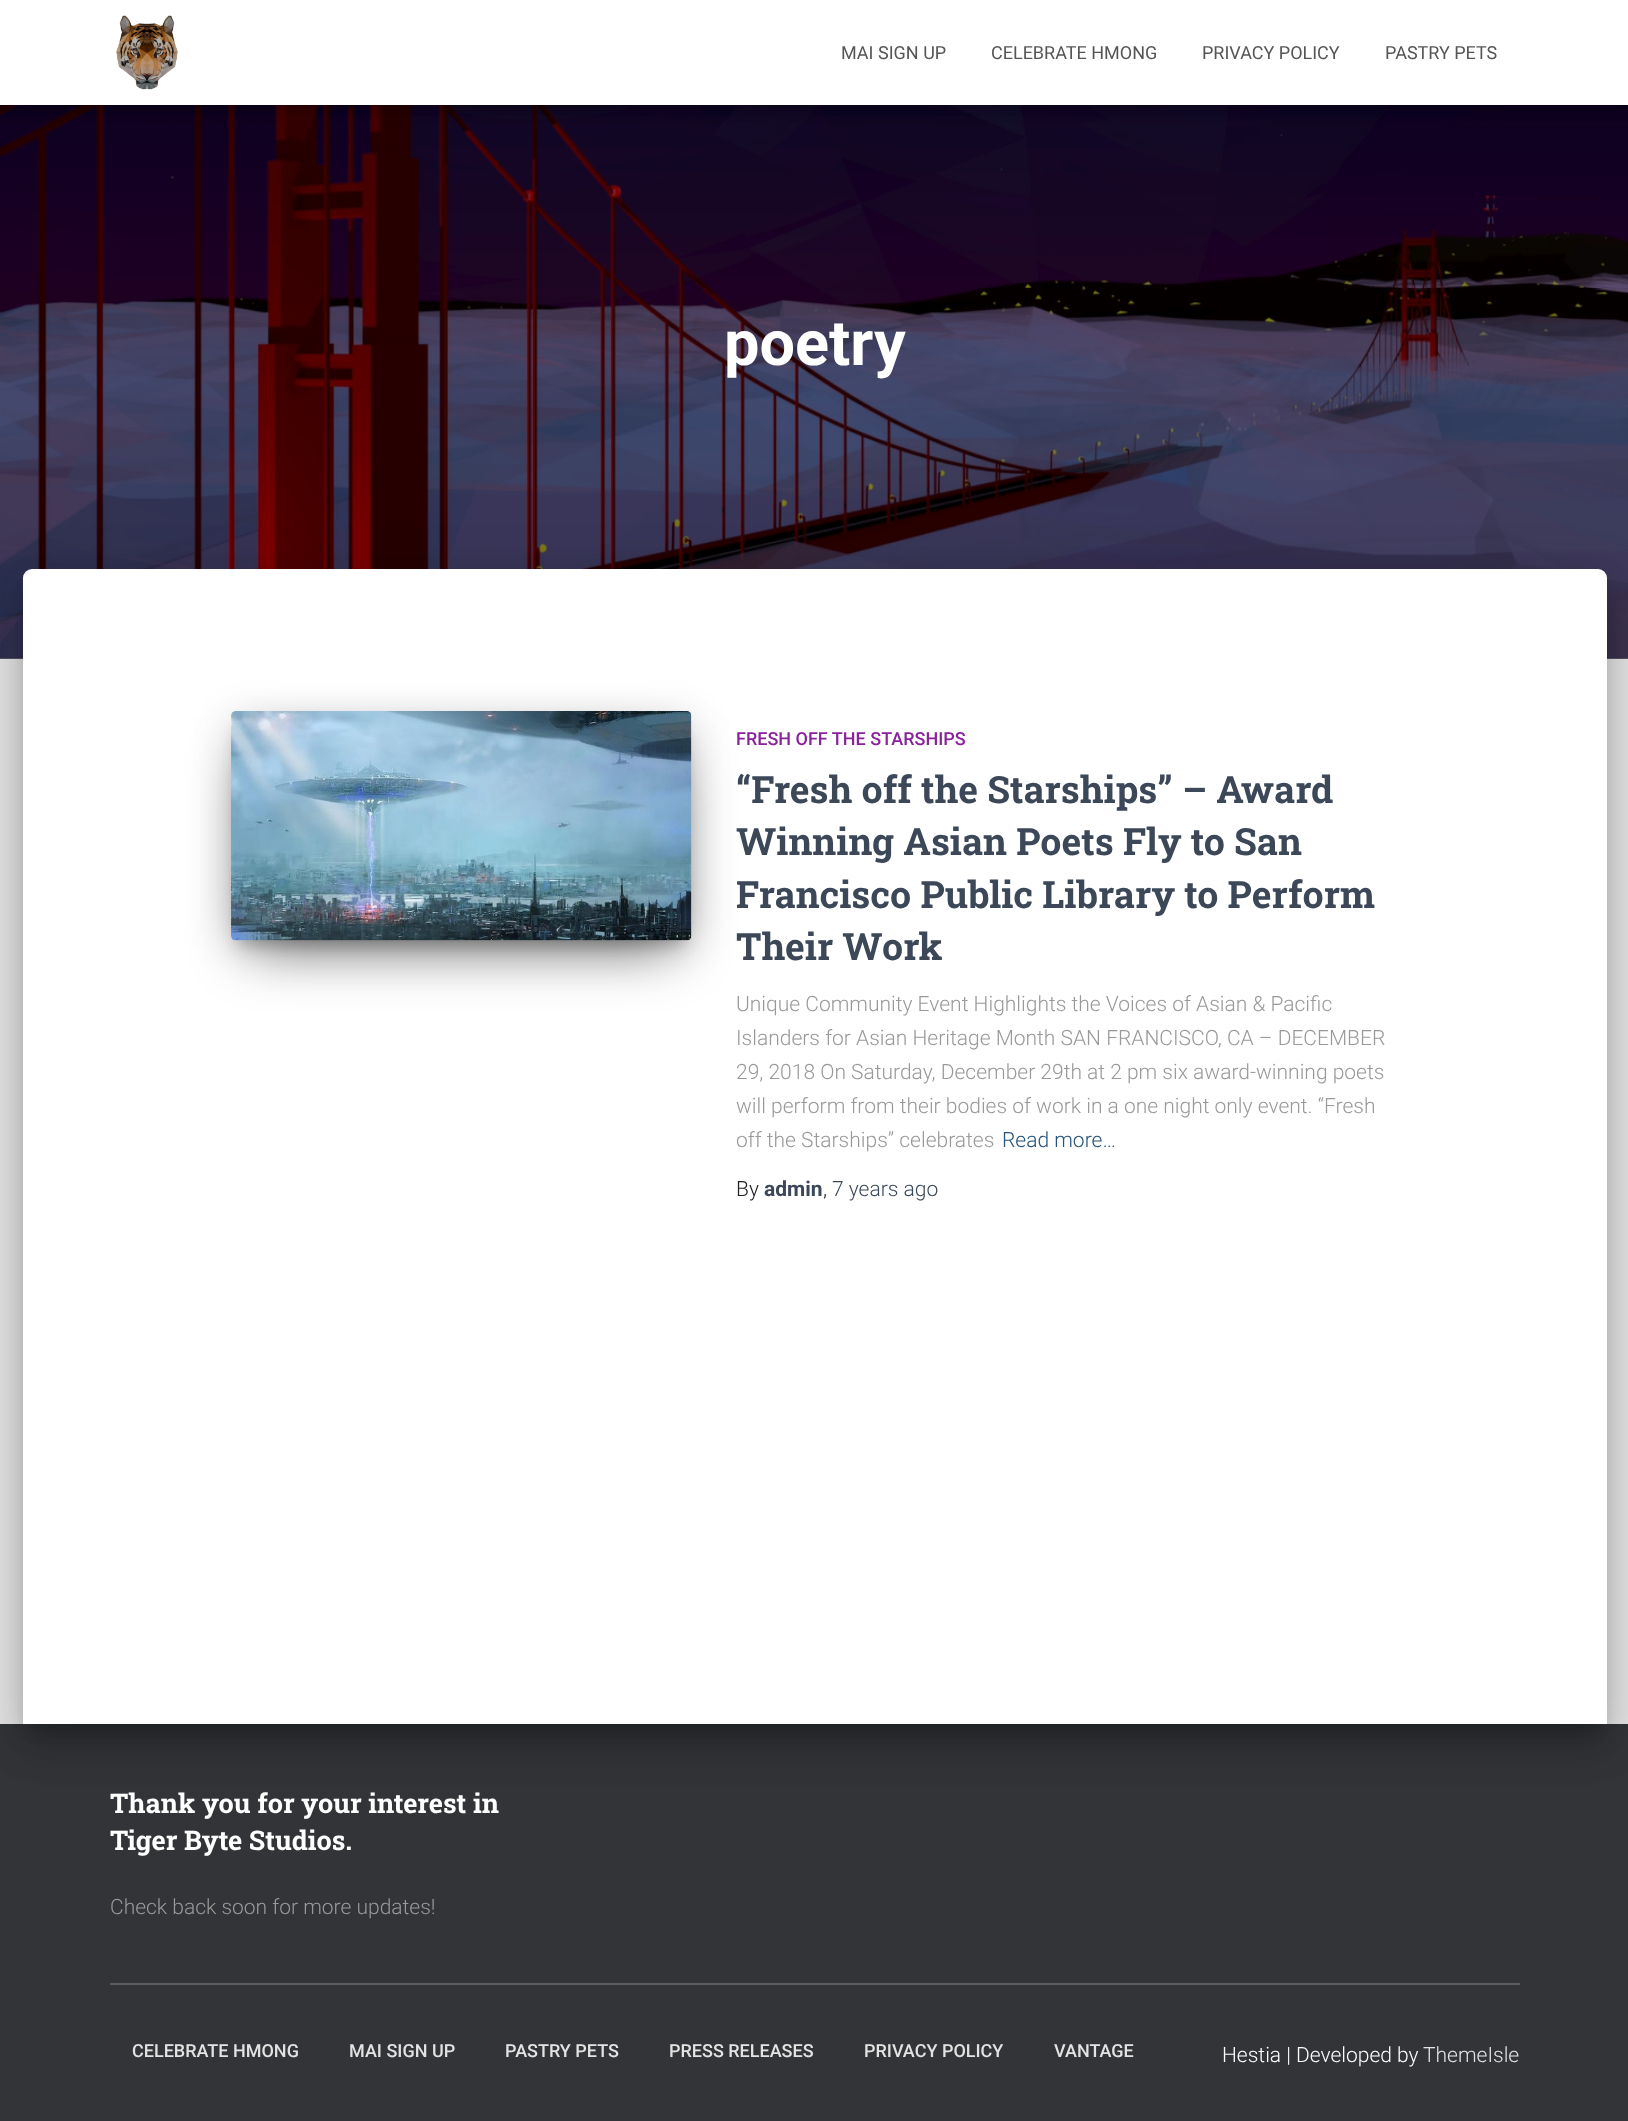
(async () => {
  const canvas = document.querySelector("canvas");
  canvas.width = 1628;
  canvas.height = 2121;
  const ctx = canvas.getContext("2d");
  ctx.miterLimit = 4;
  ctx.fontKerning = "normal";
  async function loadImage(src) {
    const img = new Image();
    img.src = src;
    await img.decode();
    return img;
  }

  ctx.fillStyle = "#e5e5e5";
  ctx.fillRect(0, 0, 1628, 2121);
  ctx.fillStyle = "#737373";
  ctx.fillRect(0, 658, 1628, 1);
  ctx.drawImage(await loadImage("img/2.png"), 0, 105, 1628, 554);
  ctx.fillStyle = "rgba(0, 0, 0, 0.1)";
  ctx.filter = "blur(4px)";
  ctx.beginPath();
  ctx.rect(3, 9, 1623, 99);
  ctx.fill();
  ctx.filter = "none";
  ctx.fillStyle = "rgba(0, 0, 0, 0.12)";
  ctx.filter = "blur(7.5px)";
  ctx.beginPath();
  ctx.rect(0, 2, 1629, 105);
  ctx.fill();
  ctx.filter = "none";
  ctx.fillStyle = "rgba(0, 0, 0, 0.42)";
  ctx.filter = "blur(7.5px)";
  ctx.beginPath();
  ctx.rect(9, 11, 1611, 87);
  ctx.fill();
  ctx.filter = "none";
  ctx.fillStyle = "#ffffff";
  ctx.fillRect(0, 0, 1628, 105);
  ctx.drawImage(await loadImage("img/1.png"), 116, 15, 62, 75);
  ctx.fillStyle = "#323437";
  ctx.fillRect(0, 1724, 1628, 397);
  ctx.fillStyle = "rgba(0, 0, 0, 0.2)";
  ctx.filter = "blur(7.5px)";
  ctx.beginPath();
  ctx.roundRect(30, 588, 1569, 1140, 1.5);
  ctx.fill();
  ctx.filter = "none";
  ctx.fillStyle = "rgba(0, 0, 0, 0.12)";
  ctx.filter = "blur(22.5px)";
  ctx.beginPath();
  ctx.roundRect(15, 570, 1599, 1170, 17);
  ctx.fill();
  ctx.filter = "none";
  ctx.fillStyle = "rgba(0, 0, 0, 0.14)";
  ctx.filter = "blur(18px)";
  ctx.beginPath();
  ctx.roundRect(20, 590, 1590, 1161, 12);
  ctx.fill();
  ctx.filter = "none";
  ctx.fillStyle = "#ffffff";
  ctx.beginPath();
  ctx.roundRect(23, 569, 1584, 1155, [9, 9, 0, 0]);
  ctx.fill();
  ctx.fillStyle = "rgba(0, 0, 0, 0.2)";
  ctx.filter = "blur(7.5px)";
  ctx.beginPath();
  ctx.rect(239, 731, 445, 214);
  ctx.fill();
  ctx.filter = "none";
  ctx.fillStyle = "rgba(0, 0, 0, 0.12)";
  ctx.filter = "blur(19px)";
  ctx.beginPath();
  ctx.roundRect(231, 717, 461, 230, 5);
  ctx.fill();
  ctx.filter = "none";
  ctx.fillStyle = "rgba(0, 0, 0, 0.56)";
  ctx.filter = "blur(28.5px)";
  ctx.beginPath();
  ctx.rect(249, 753, 425, 194);
  ctx.fill();
  ctx.filter = "none";
  ctx.drawImage(await loadImage("img/3.png"), 231, 711, 461, 230);
  ctx.fillStyle = "#5b5d5f";
  ctx.fillRect(110, 1983, 1410, 2);
  ctx.font = "18px Roboto";
  ctx.fillStyle = "#555555";
  for (const [text, x, y] of [
    ["MAI SIGN UP", 841, 59],
    ["CELEBRATE HMONG", 991, 59],
    ["PRIVACY POLICY", 1202, 59],
    ["PASTRY PETS", 1385, 59],
  ]) {
    ctx.fillText(text, x, y);
  }
  ctx.font = "bold 63px Roboto";
  ctx.fillStyle = "#ffffff";
  ctx.fillText("poetry", 724, 365);
  ctx.font = "500 18px Roboto";
  ctx.fillStyle = "#89229b";
  ctx.fillText("FRESH OFF THE STARSHIPS", 736, 745);
  ctx.font = "bold 37.5px Roboto Slab";
  ctx.fillStyle = "#3c4858";
  for (const [text, x, y] of [
    ["“Fresh off the Starships” – Award", 736, 803],
    ["Winning Asian Poets Fly to San", 736, 855],
    ["Francisco Public Library to Perform", 736, 908],
    ["Their Work", 736, 960],
  ]) {
    ctx.fillText(text, x, y);
  }
  ctx.font = "300 21px Roboto";
  ctx.fillStyle = "#999999";
  for (const [text, x, y] of [
    ["Unique Community Event Highlights the Voices of Asian & Pacific", 736, 1011],
    ["Islanders for Asian Heritage Month SAN FRANCISCO, CA – DECEMBER", 736, 1045],
    ["29, 2018 On Saturday, December 29th at 2 pm six award-winning poets", 736, 1079],
    ["will perform from their bodies of work in a one night only event. “Fresh", 736, 1113],
    ["off the Starships” celebrates", 736, 1147],
  ]) {
    ctx.fillText(text, x, y);
  }
  ctx.fillStyle = "#23527c";
  ctx.fillText("Read more…", 1002, 1147);
  ctx.fillStyle = "#212121";
  ctx.fillText("By", 736, 1196);
  ctx.font = "bold 21px Roboto";
  ctx.fillStyle = "#3c4858";
  ctx.fillText("admin", 764, 1196);
  ctx.font = "300 21px Roboto";
  ctx.fillStyle = "#212121";
  ctx.fillText(",", 823, 1196);
  ctx.fillStyle = "#3c4858";
  ctx.fillText("7 years ago", 832, 1196);
  ctx.font = "bold 27px Roboto Slab";
  ctx.fillStyle = "#ffffff";
  ctx.fillText("Thank you for your interest in", 110, 1813);
  ctx.fillText("Tiger Byte Studios.", 110, 1850);
  ctx.font = "300 21px Roboto";
  ctx.fillStyle = "#999999";
  ctx.fillText("Check back soon for more updates!", 110, 1914);
  ctx.font = "500 18px Roboto";
  ctx.fillStyle = "#e2e3e3";
  for (const [text, x, y] of [
    ["CELEBRATE HMONG", 132, 2057],
    ["MAI SIGN UP", 349, 2057],
    ["PASTRY PETS", 505, 2057],
    ["PRESS RELEASES", 669, 2057],
    ["PRIVACY POLICY", 864, 2057],
    ["VANTAGE", 1054, 2057],
  ]) {
    ctx.fillText(text, x, y);
  }
  ctx.font = "300 21px Roboto";
  ctx.fillStyle = "#ffffff";
  ctx.fillText("Hestia | Developed by", 1222, 2062);
  ctx.fillStyle = "#e2e3e3";
  ctx.fillText("ThemeIsle", 1423, 2062);
})();
